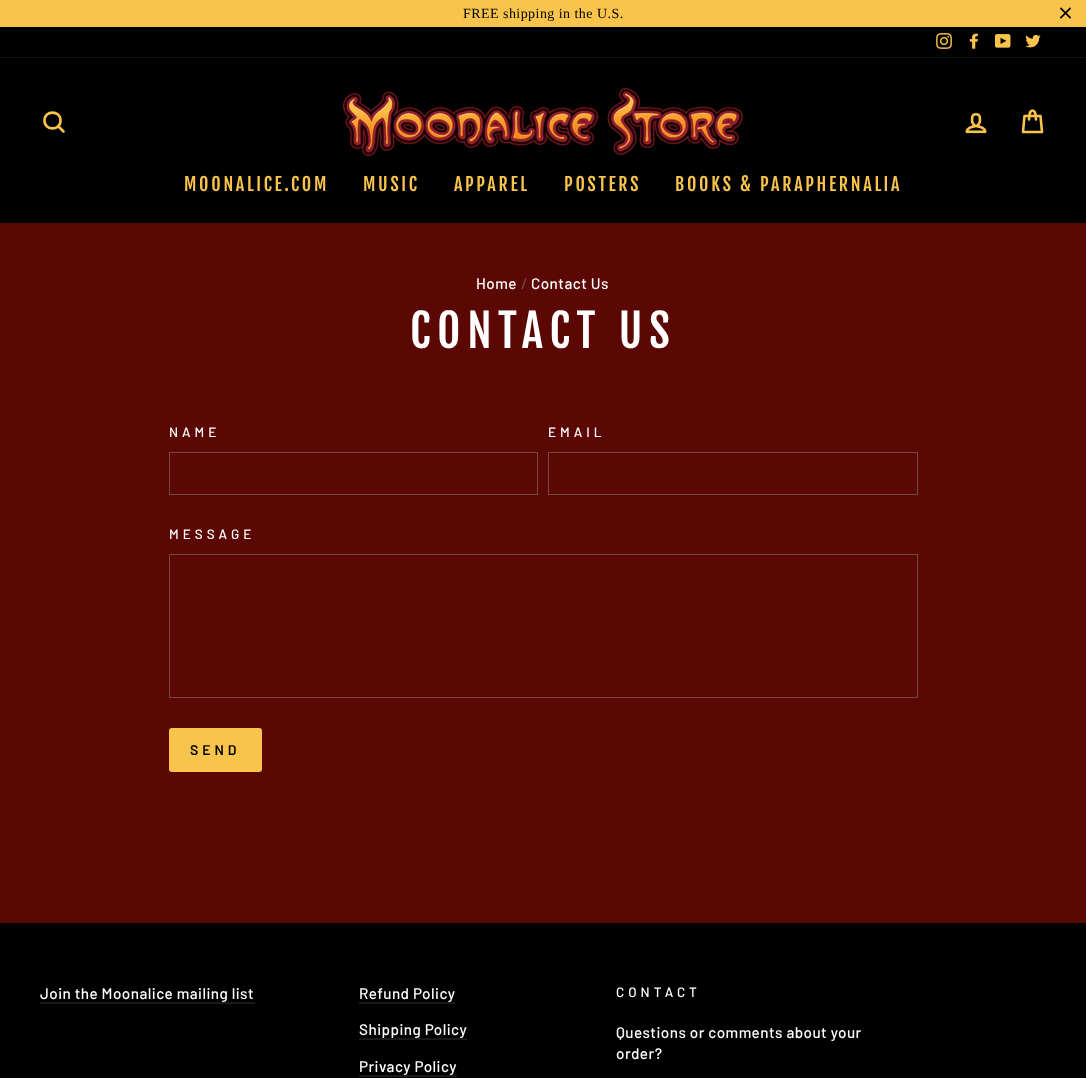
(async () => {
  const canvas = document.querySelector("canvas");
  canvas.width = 1086;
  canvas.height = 1078;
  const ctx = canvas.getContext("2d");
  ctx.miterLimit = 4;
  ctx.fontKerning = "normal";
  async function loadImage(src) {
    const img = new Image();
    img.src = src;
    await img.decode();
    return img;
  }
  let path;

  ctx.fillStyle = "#5b0703";
  ctx.fillRect(0, 0, 1086, 1078);
  ctx.fillStyle = "#f9c44b";
  ctx.fillRect(0, 0, 1086, 27);
  ctx.drawImage(await loadImage("img/1.png"), 1060, 7, 11, 12);
  ctx.fillStyle = "#000000";
  ctx.fillRect(0, 27, 1086, 30);
  ctx.drawImage(await loadImage("img/2.png"), 936, 33, 16, 16);
  ctx.drawImage(await loadImage("img/3.png"), 969, 33, 9, 16);
  ctx.drawImage(await loadImage("img/4.png"), 995, 34, 16, 14);
  ctx.drawImage(await loadImage("img/5.png"), 1025, 34, 16, 14);
  ctx.fillRect(0, 58, 1086, 165);
  ctx.fillStyle = "#191408";
  ctx.fillRect(0, 57, 1086, 1);
  path = new Path2D("M60.5 120.5C60.5 131 44.5 131 44.5 120.5C44.5 110 60.5 110 60.5 120.5ZM63.5 131.5L58.5 126.5");
  ctx.strokeStyle = "#f9c44b";
  ctx.lineWidth = 2.6;
  ctx.lineCap = "round";
  ctx.lineJoin = "round";
  ctx.stroke(path);
  ctx.drawImage(await loadImage("img/6.png"), 343, 88, 400, 68);
  ctx.drawImage(await loadImage("img/7.png"), 965, 113, 22, 21);
  path = new Path2D("M1029 119.5C1029 107.5 1036 107.5 1036 119.5M1024.5 116H1040.5L1042 132H1023Z");
  ctx.stroke(path);
  ctx.strokeStyle = "#724a44";
  ctx.lineWidth = 1;
  ctx.lineJoin = "miter";
  ctx.strokeRect(169.5, 452.5, 368, 42);
  ctx.strokeRect(548.5, 452.5, 369, 42);
  ctx.strokeRect(169.5, 554.5, 748, 143);
  ctx.fillStyle = "#f9c44b";
  ctx.beginPath();
  ctx.roundRect(169, 728, 93, 44, 3);
  ctx.fill();
  for (const [x, y, w, h, color] of [
    [0, 923, 1086, 155, "#000000"],
    [40, 1002, 215, 2, "#1a1a1a"],
    [359, 1002, 96, 2, "#1a1a1a"],
    [359, 1038, 108, 2, "#1a1a1a"],
    [359, 1075, 98, 2, "#1a1a1a"],
  ]) {
    ctx.fillStyle = color;
    ctx.fillRect(x, y, w, h);
  }
  ctx.letterSpacing = "0.45px";
  ctx.font = "14px Liberation Serif";
  ctx.fillStyle = "#000000";
  ctx.fillText("FREE shipping in the U.S.", 463, 18);
  ctx.letterSpacing = "2.7px";
  ctx.font = "18px Fjalla One";
  ctx.fillStyle = "#f9c44b";
  for (const [text, x, y] of [
    ["MOONALICE.COM", 184, 191],
    ["MUSIC", 363, 191],
    ["APPAREL", 454, 191],
    ["POSTERS", 564, 191],
    ["BOOKS & PARAPHERNALIA", 675, 191],
  ]) {
    ctx.fillText(text, x, y);
  }
  ctx.letterSpacing = "0.45px";
  ctx.font = "500 15.25px Barlow";
  ctx.fillStyle = "#ffffff";
  ctx.fillText("Home", 476, 289);
  ctx.fillStyle = "#724a44";
  ctx.fillText("/", 521, 289);
  ctx.fillStyle = "#ffffff";
  ctx.fillText("Contact Us", 531, 289);
  ctx.letterSpacing = "6.75px";
  ctx.font = "45px Fjalla One";
  ctx.fillText("CONTACT US", 410, 348);
  ctx.letterSpacing = "4px";
  ctx.font = "500 13.5px Barlow";
  for (const [text, x, y] of [
    ["NAME", 169, 437],
    ["EMAIL", 548, 437],
    ["MESSAGE", 169, 539],
  ]) {
    ctx.fillText(text, x, y);
  }
  ctx.font = "600 14px Barlow";
  ctx.fillStyle = "#000000";
  ctx.fillText("SEND", 190, 755);
  ctx.letterSpacing = "0.45px";
  ctx.font = "500 15.25px Barlow";
  ctx.fillStyle = "#ffffff";
  for (const [text, x, y] of [
    ["Join the Moonalice mailing list", 40, 999],
    ["Refund Policy", 359, 999],
    ["Shipping Policy", 359, 1035],
    ["Privacy Policy", 359, 1072],
  ]) {
    ctx.fillText(text, x, y);
  }
  ctx.letterSpacing = "4px";
  ctx.font = "500 13.5px Barlow";
  ctx.fillText("CONTACT", 616, 997);
  ctx.letterSpacing = "0.45px";
  ctx.font = "500 15.25px Barlow";
  ctx.fillText("Questions or comments about your", 616, 1038);
  ctx.fillText("order?", 616, 1059);
})();
